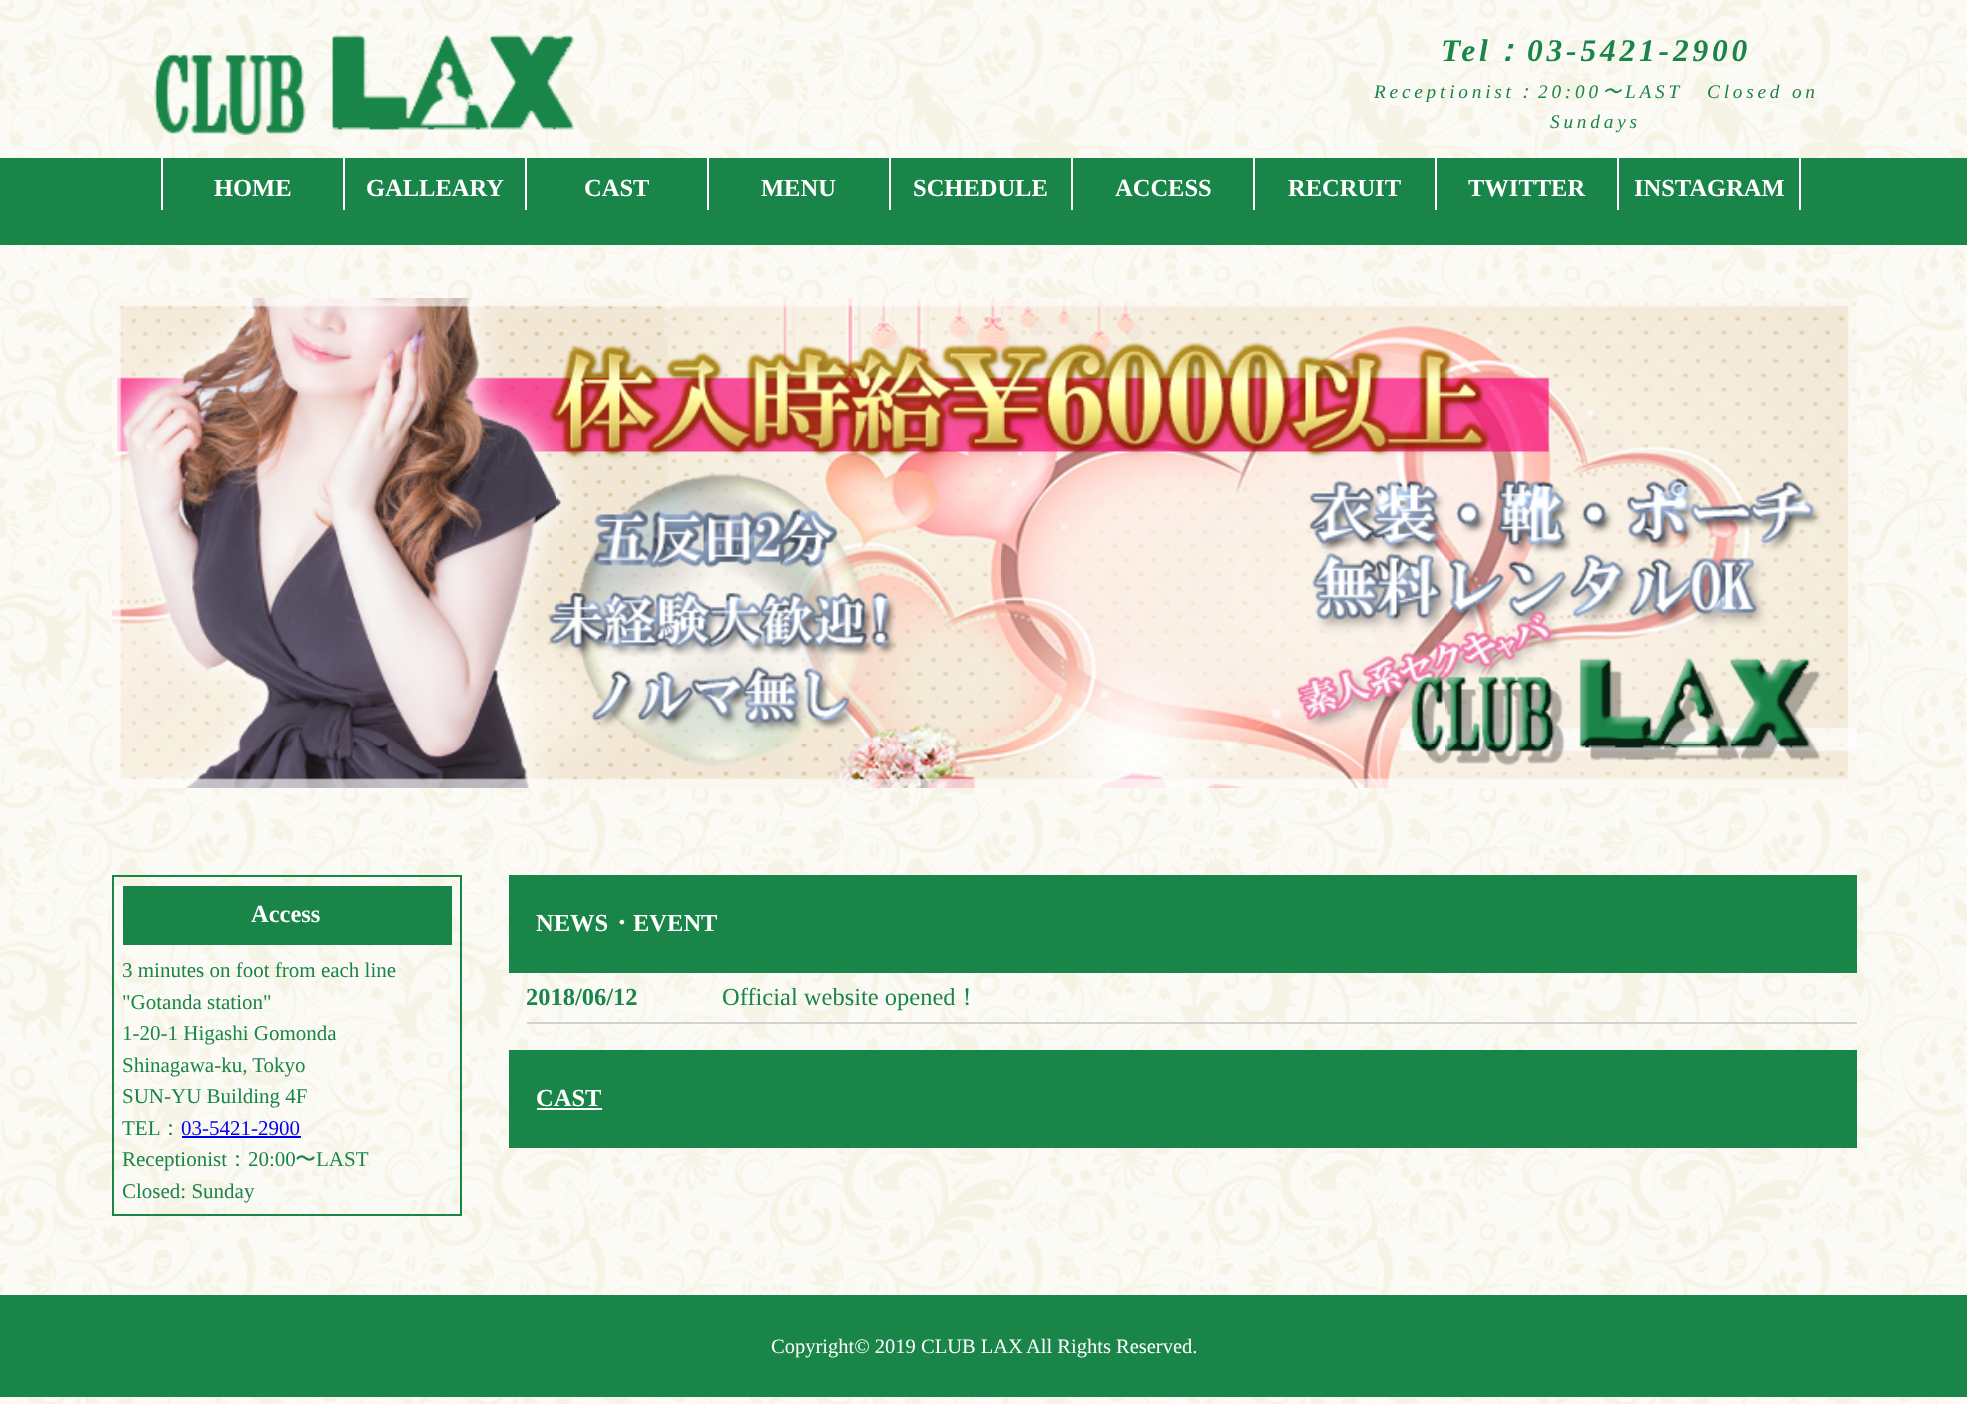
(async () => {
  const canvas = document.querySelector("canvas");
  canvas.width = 1967;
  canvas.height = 1404;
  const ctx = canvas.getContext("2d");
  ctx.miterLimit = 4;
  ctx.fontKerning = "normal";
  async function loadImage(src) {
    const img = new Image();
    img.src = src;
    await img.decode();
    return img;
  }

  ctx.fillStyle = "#ffffff";
  ctx.fillRect(0, 0, 1967, 1404);
  ctx.drawImage(await loadImage("img/1.png"), 0, 0, 1967, 1404);
  ctx.drawImage(await loadImage("img/2.png"), 154, 35, 422, 100);
  for (const [x, y, w, h, color] of [
    [0, 158, 1967, 87, "#1a8548"],
    [343, 158, 2, 52, "#ffffff"],
    [161, 158, 2, 52, "#ffffff"],
    [525, 158, 2, 52, "#ffffff"],
    [707, 158, 2, 52, "#ffffff"],
    [889, 158, 2, 52, "#ffffff"],
    [1071, 158, 2, 52, "#ffffff"],
    [1253, 158, 2, 52, "#ffffff"],
    [1435, 158, 2, 52, "#ffffff"],
    [1617, 158, 2, 52, "#ffffff"],
    [1799, 158, 2, 52, "#ffffff"],
  ]) {
    ctx.fillStyle = color;
    ctx.fillRect(x, y, w, h);
  }
  ctx.drawImage(await loadImage("img/3.png"), 112, 298, 1745, 490);
  ctx.strokeStyle = "#1a8548";
  ctx.lineWidth = 2;
  ctx.strokeRect(113, 876, 348, 339);
  for (const [x, y, w, h, color] of [
    [123, 886, 329, 59, "#1a8548"],
    [182, 1136, 119, 2, "#0000ee"],
    [509, 875, 1348, 98, "#1a8548"],
    [527, 1022, 1330, 2, "#d2d2d2"],
    [509, 1050, 1348, 98, "#1a8548"],
    [537, 1108, 65, 2, "#ffffff"],
    [0, 1295, 1967, 102, "#1a8548"],
  ]) {
    ctx.fillStyle = color;
    ctx.fillRect(x, y, w, h);
  }
  ctx.letterSpacing = "3.8px";
  ctx.font = "italic bold 31.5px Liberation Serif";
  ctx.fillText("Tel", 1441, 61);
  ctx.font = "italic bold 31.5px WenQuanYi Zen Hei";
  ctx.fillText("：", 1491, 61);
  ctx.font = "italic bold 31.5px Liberation Serif";
  ctx.fillText("03-5421-2900", 1527, 61);
  ctx.font = "italic 19.25px Liberation Serif";
  ctx.fillText("Receptionist", 1374, 98);
  ctx.font = "italic 500 19.25px WenQuanYi Zen Hei";
  ctx.fillText("：", 1515, 98);
  ctx.font = "italic 19.25px Liberation Serif";
  ctx.fillText("20:00", 1538, 98);
  ctx.font = "italic 500 19.25px WenQuanYi Zen Hei";
  ctx.fillText("〜", 1602, 98);
  ctx.font = "italic 19.25px Liberation Serif";
  for (const [text, x, y] of [
    ["LAST", 1625, 98],
    ["Closed on", 1707, 98],
    ["Sundays", 1550, 128],
  ]) {
    ctx.fillText(text, x, y);
  }
  ctx.letterSpacing = "0px";
  ctx.font = "bold 24.5px Liberation Serif";
  ctx.fillStyle = "#ffffff";
  for (const [text, x, y] of [
    ["HOME", 214, 196],
    ["GALLEARY", 366, 196],
    ["CAST", 584, 196],
    ["MENU", 761, 196],
    ["SCHEDULE", 913, 196],
    ["ACCESS", 1115, 196],
    ["RECRUIT", 1288, 196],
    ["TWITTER", 1468, 196],
    ["INSTAGRAM", 1634, 196],
    ["Access", 251, 922],
  ]) {
    ctx.fillText(text, x, y);
  }
  ctx.font = "21px Liberation Serif";
  ctx.fillStyle = "#1a8548";
  for (const [text, x, y] of [
    ["3 minutes on foot from each line", 122, 977],
    ["\"Gotanda station\"", 122, 1009],
    ["1-20-1 Higashi Gomonda", 122, 1040],
    ["Shinagawa-ku, Tokyo", 122, 1072],
    ["SUN-YU Building 4F", 122, 1103],
    ["TEL", 122, 1135],
  ]) {
    ctx.fillText(text, x, y);
  }
  ctx.font = "500 21px WenQuanYi Zen Hei";
  ctx.fillText("：", 160, 1135);
  ctx.font = "21px Liberation Serif";
  ctx.fillStyle = "#0000ee";
  ctx.fillText("03-5421-2900", 181, 1135);
  ctx.fillStyle = "#1a8548";
  ctx.fillText("Receptionist", 122, 1166);
  ctx.font = "500 21px WenQuanYi Zen Hei";
  ctx.fillText("：", 227, 1166);
  ctx.font = "21px Liberation Serif";
  ctx.fillText("20:00", 248, 1166);
  ctx.font = "500 21px WenQuanYi Zen Hei";
  ctx.fillText("〜", 295, 1166);
  ctx.font = "21px Liberation Serif";
  ctx.fillText("LAST", 316, 1166);
  ctx.fillText("Closed: Sunday", 122, 1198);
  ctx.font = "bold 24.5px Liberation Serif";
  ctx.fillStyle = "#ffffff";
  ctx.fillText("NEWS", 536, 931);
  ctx.font = "bold 24.5px WenQuanYi Zen Hei";
  ctx.fillText("・", 609, 931);
  ctx.font = "bold 24.5px Liberation Serif";
  ctx.fillText("EVENT", 633, 931);
  ctx.fillStyle = "#1a8548";
  ctx.fillText("2018/06/12", 526, 1005);
  ctx.font = "24.5px Liberation Serif";
  ctx.fillText("Official website opened", 722, 1005);
  ctx.font = "500 24.5px WenQuanYi Zen Hei";
  ctx.fillText("！", 955, 1005);
  ctx.font = "bold 24.5px Liberation Serif";
  ctx.fillStyle = "#ffffff";
  ctx.fillText("CAST", 536, 1106);
  ctx.font = "20.5px Liberation Serif";
  ctx.fillText("Copyright© 2019 CLUB LAX", 771, 1353);
  ctx.fillText("All Rights Reserved.", 1026, 1353);
})();
